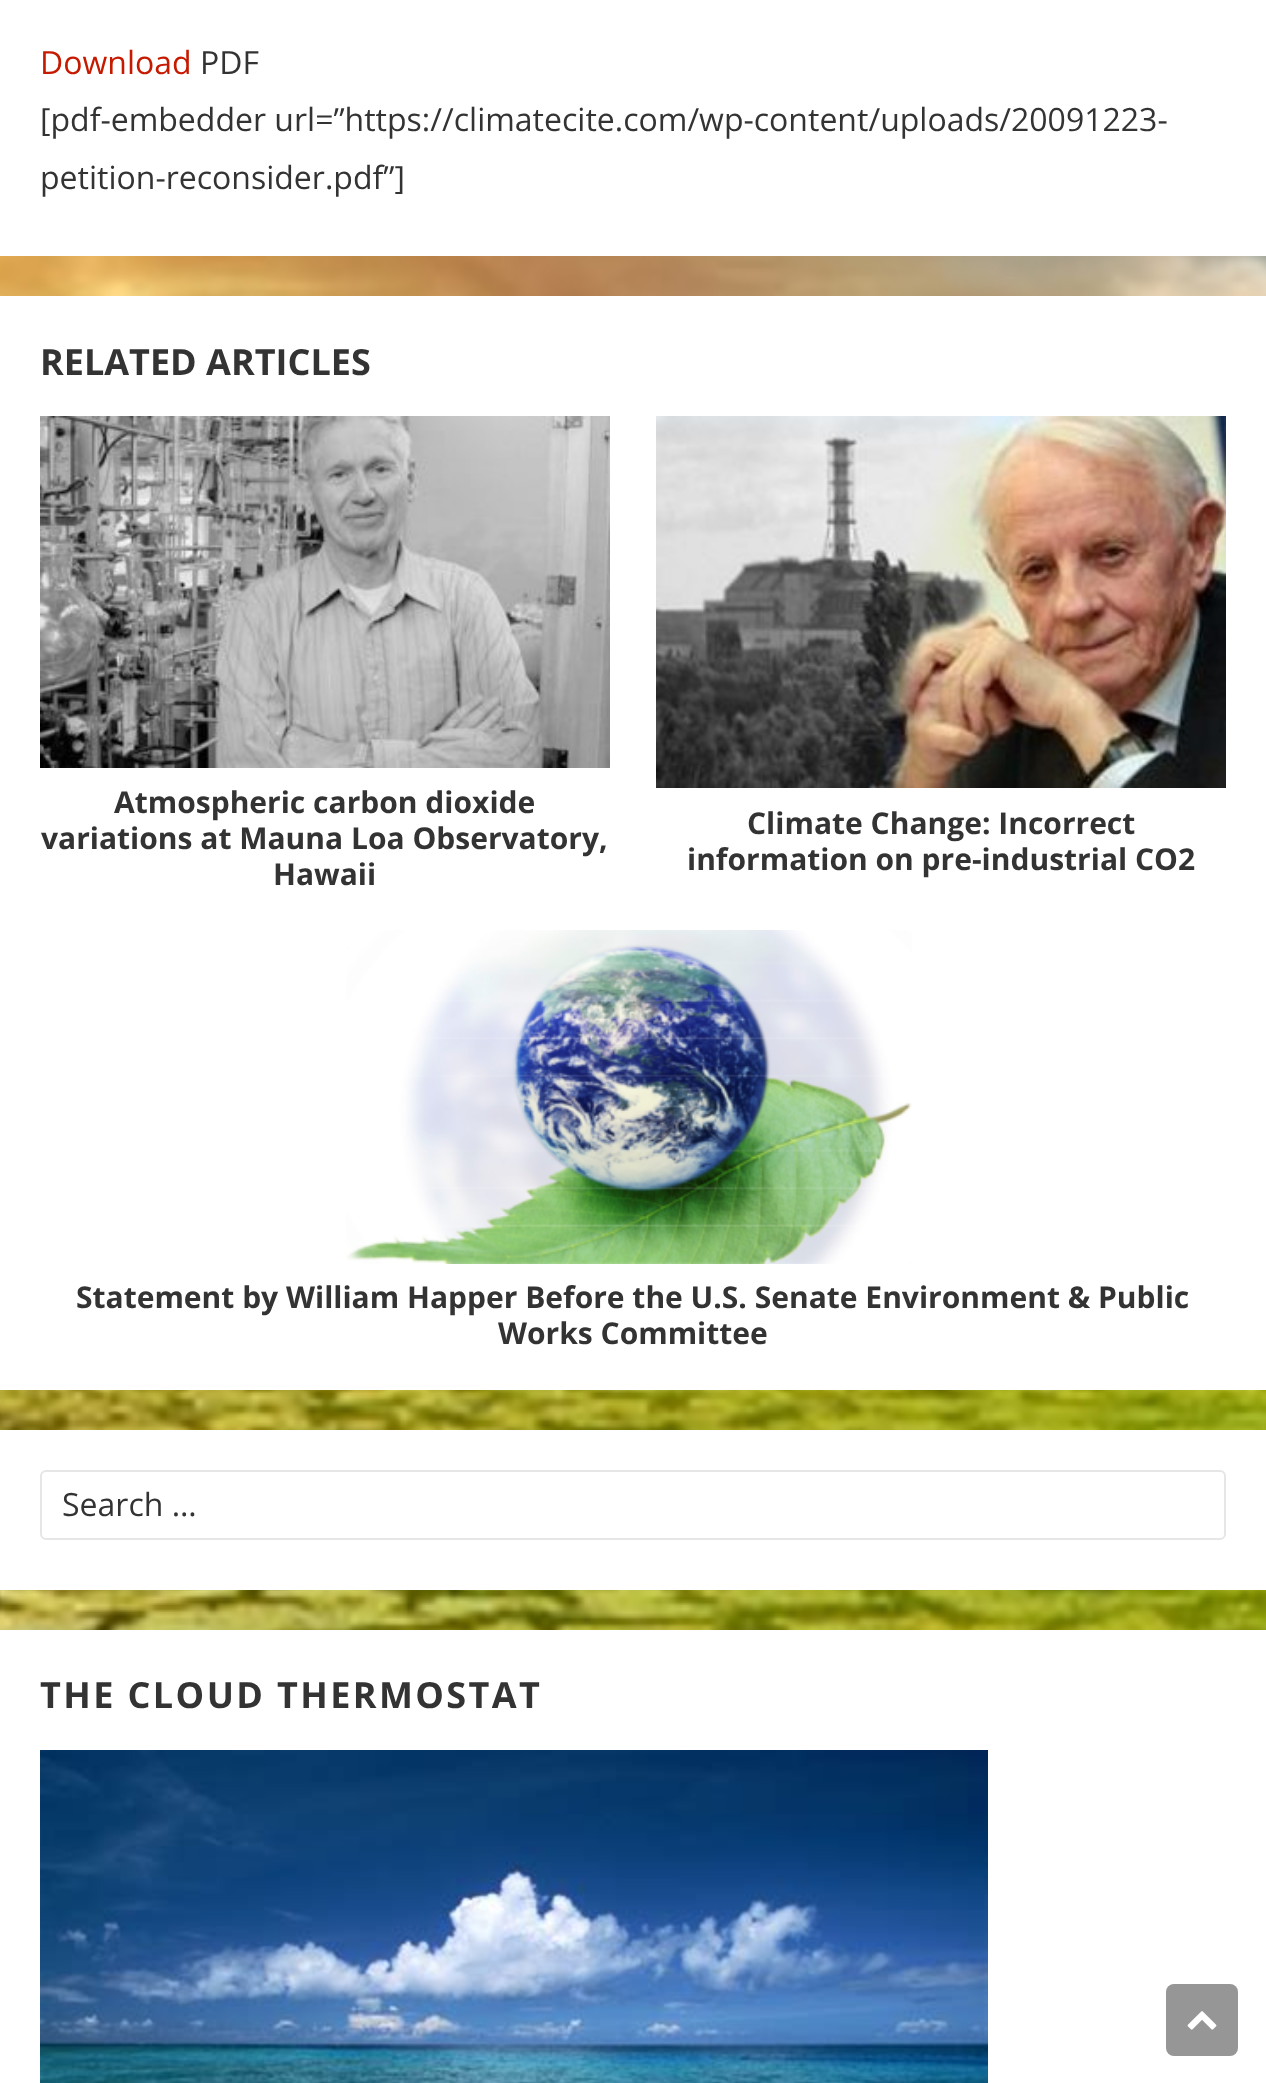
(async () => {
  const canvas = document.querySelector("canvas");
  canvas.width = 1266;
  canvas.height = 2083;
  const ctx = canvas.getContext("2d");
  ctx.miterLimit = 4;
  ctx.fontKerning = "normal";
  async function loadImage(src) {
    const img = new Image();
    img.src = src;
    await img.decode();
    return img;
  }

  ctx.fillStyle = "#ffffff";
  ctx.fillRect(0, 0, 1266, 2083);
  ctx.drawImage(await loadImage("img/1.png"), 0, 256, 1266, 1374);
  ctx.fillRect(0, 296, 1266, 1094);
  ctx.drawImage(await loadImage("img/2.png"), 40, 416, 570, 352);
  ctx.drawImage(await loadImage("img/3.png"), 656, 416, 570, 372);
  ctx.drawImage(await loadImage("img/4.png"), 346, 930, 566, 334);
  ctx.fillRect(0, 1430, 1266, 160);
  ctx.beginPath();
  ctx.roundRect(41, 1471, 1184, 68, 5);
  ctx.strokeStyle = "#e6e6e6";
  ctx.lineWidth = 2;
  ctx.stroke();
  ctx.drawImage(await loadImage("img/5.png"), 40, 1750, 948, 333);
  ctx.fillStyle = "#969696";
  ctx.beginPath();
  ctx.roundRect(1166, 1984, 72, 72, 8);
  ctx.fill();
  ctx.drawImage(await loadImage("img/6.png"), 1187, 2011, 30, 19);
  ctx.font = "32px Open Sans";
  ctx.fillStyle = "#c61a00";
  ctx.fillText("Download", 40, 74);
  ctx.fillStyle = "#333333";
  for (const [text, x, y] of [
    ["PDF", 200, 74],
    ["[pdf-embedder url=”https://climatecite.com/wp-content/uploads/20091223-", 40, 131],
    ["petition-reconsider.pdf”]", 40, 189],
  ]) {
    ctx.fillText(text, x, y);
  }
  ctx.font = "bold 36px Open Sans";
  ctx.fillText("RELATED ARTICLES", 40, 375);
  ctx.font = "bold 30px Open Sans";
  for (const [text, x, y] of [
    ["Atmospheric carbon dioxide", 114, 813],
    ["variations at Mauna Loa Observatory,", 41, 849],
    ["Hawaii", 273, 885],
    ["Climate Change: Incorrect", 747, 834],
    ["information on pre-industrial CO2", 687, 870],
    ["Statement by William Happer Before the U.S. Senate Environment & Public", 76, 1308],
    ["Works Committee", 498, 1344],
  ]) {
    ctx.fillText(text, x, y);
  }
  ctx.font = "32px Open Sans";
  ctx.fillText("Search …", 62, 1516);
  ctx.letterSpacing = "2.4px";
  ctx.font = "bold 36px Open Sans";
  ctx.fillText("THE CLOUD THERMOSTAT", 40, 1708);
})();
